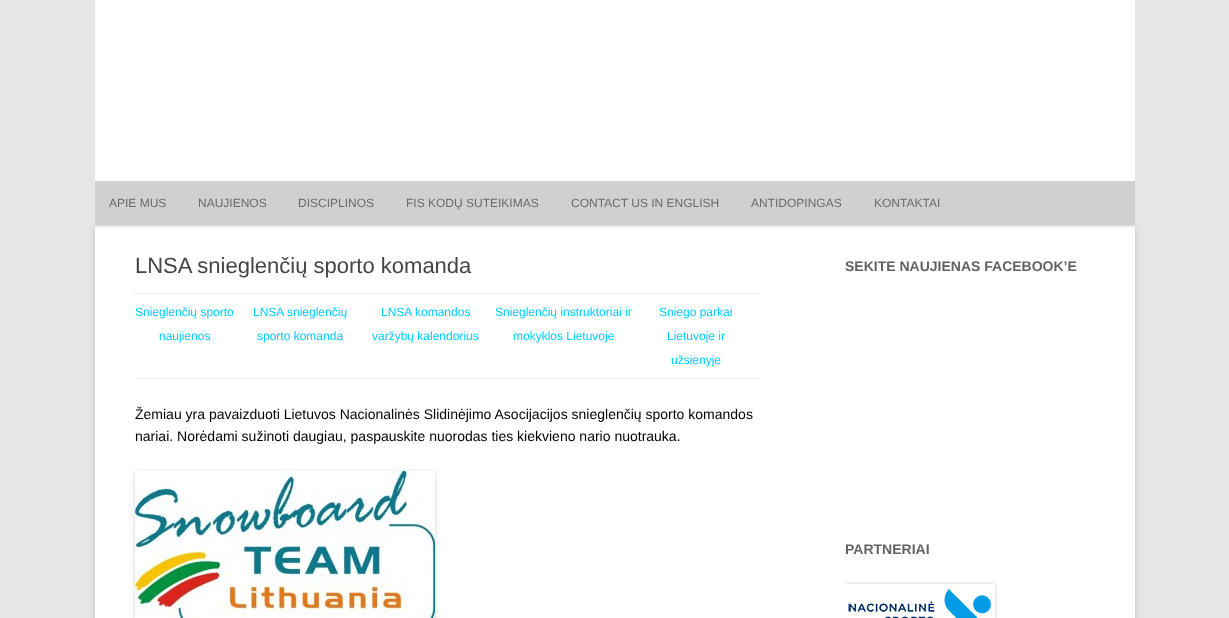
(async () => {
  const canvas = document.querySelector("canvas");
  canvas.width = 1229;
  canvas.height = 618;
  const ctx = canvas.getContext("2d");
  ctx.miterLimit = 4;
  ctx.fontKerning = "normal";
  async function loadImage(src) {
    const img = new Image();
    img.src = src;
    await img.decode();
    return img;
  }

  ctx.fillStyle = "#e6e6e6";
  ctx.fillRect(0, 0, 1229, 618);
  for (const [x, y, w, h, color] of [
    [95, 0, 1040, 181, "#ffffff"],
    [95, 181, 1040, 44, "#d0d0d0"],
    [95, 225, 1040, 2, "#ededed"],
  ]) {
    ctx.fillStyle = color;
    ctx.fillRect(x, y, w, h);
  }
  ctx.fillStyle = "rgba(100, 100, 100, 0.3)";
  ctx.filter = "blur(3px)";
  ctx.beginPath();
  ctx.rect(95, 229, 1040, 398);
  ctx.fill();
  ctx.filter = "none";
  for (const [x, y, w, h, color] of [
    [95, 227, 1040, 391, "#ffffff"],
    [135, 378, 624, 1, "#ededed"],
    [134, 293, 626, 1, "#ededed"],
  ]) {
    ctx.fillStyle = color;
    ctx.fillRect(x, y, w, h);
  }
  ctx.fillStyle = "rgba(0, 0, 0, 0.2)";
  ctx.filter = "blur(2px)";
  ctx.beginPath();
  ctx.roundRect(135, 472, 300, 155, 3);
  ctx.fill();
  ctx.filter = "none";
  ctx.drawImage(await loadImage("img/1.png"), 135, 471, 300, 147);
  ctx.save();
  ctx.beginPath();
  ctx.rect(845, 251, 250, 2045);
  ctx.clip();
  ctx.filter = "blur(2px)";
  ctx.beginPath();
  ctx.roundRect(845, 584, 150, 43, 3);
  ctx.fill();
  ctx.filter = "none";
  ctx.restore();
  ctx.drawImage(await loadImage("img/2.png"), 845, 584, 150, 34);
  ctx.font = "12px Liberation Sans";
  ctx.fillStyle = "#6a6a6a";
  for (const [text, x, y] of [
    ["APIE MUS", 109, 207],
    ["NAUJIENOS", 198, 207],
    ["DISCIPLINOS", 298, 207],
    ["FIS KODŲ SUTEIKIMAS", 406, 207],
    ["CONTACT US IN ENGLISH", 571, 207],
    ["ANTIDOPINGAS", 751, 207],
    ["KONTAKTAI", 874, 207],
  ]) {
    ctx.fillText(text, x, y);
  }
  ctx.font = "22px Liberation Sans";
  ctx.fillStyle = "#444444";
  ctx.fillText("LNSA snieglenčių sporto komanda", 135, 273);
  ctx.font = "12px Liberation Sans";
  ctx.fillStyle = "#00ccff";
  for (const [text, x, y] of [
    ["Snieglenčių sporto", 135, 316],
    ["naujienos", 159, 340],
    ["LNSA snieglenčių", 253, 316],
    ["sporto komanda", 257, 340],
    ["LNSA komandos", 381, 316],
    ["varžybų kalendorius", 372, 340],
    ["Snieglenčių instruktoriai ir", 495, 316],
    ["mokyklos Lietuvoje", 513, 340],
    ["Sniego parkai", 659, 316],
    ["Lietuvoje ir", 667, 340],
    ["užsienyje", 671, 364],
  ]) {
    ctx.fillText(text, x, y);
  }
  ctx.font = "14px Liberation Sans";
  ctx.fillStyle = "#000000";
  ctx.fillText("Žemiau yra pavaizduoti Lietuvos Nacionalinės Slidinėjimo Asocijacijos snieglenčių sporto komandos", 135, 419);
  ctx.fillText("nariai. Norėdami sužinoti daugiau, paspauskite nuorodas ties kiekvieno nario nuotrauka.", 135, 441);
  ctx.font = "bold 14px Liberation Sans";
  ctx.fillStyle = "#636363";
  ctx.fillText("SEKITE NAUJIENAS FACEBOOK’E", 845, 271);
  ctx.fillText("PARTNERIAI", 845, 554);
})();
